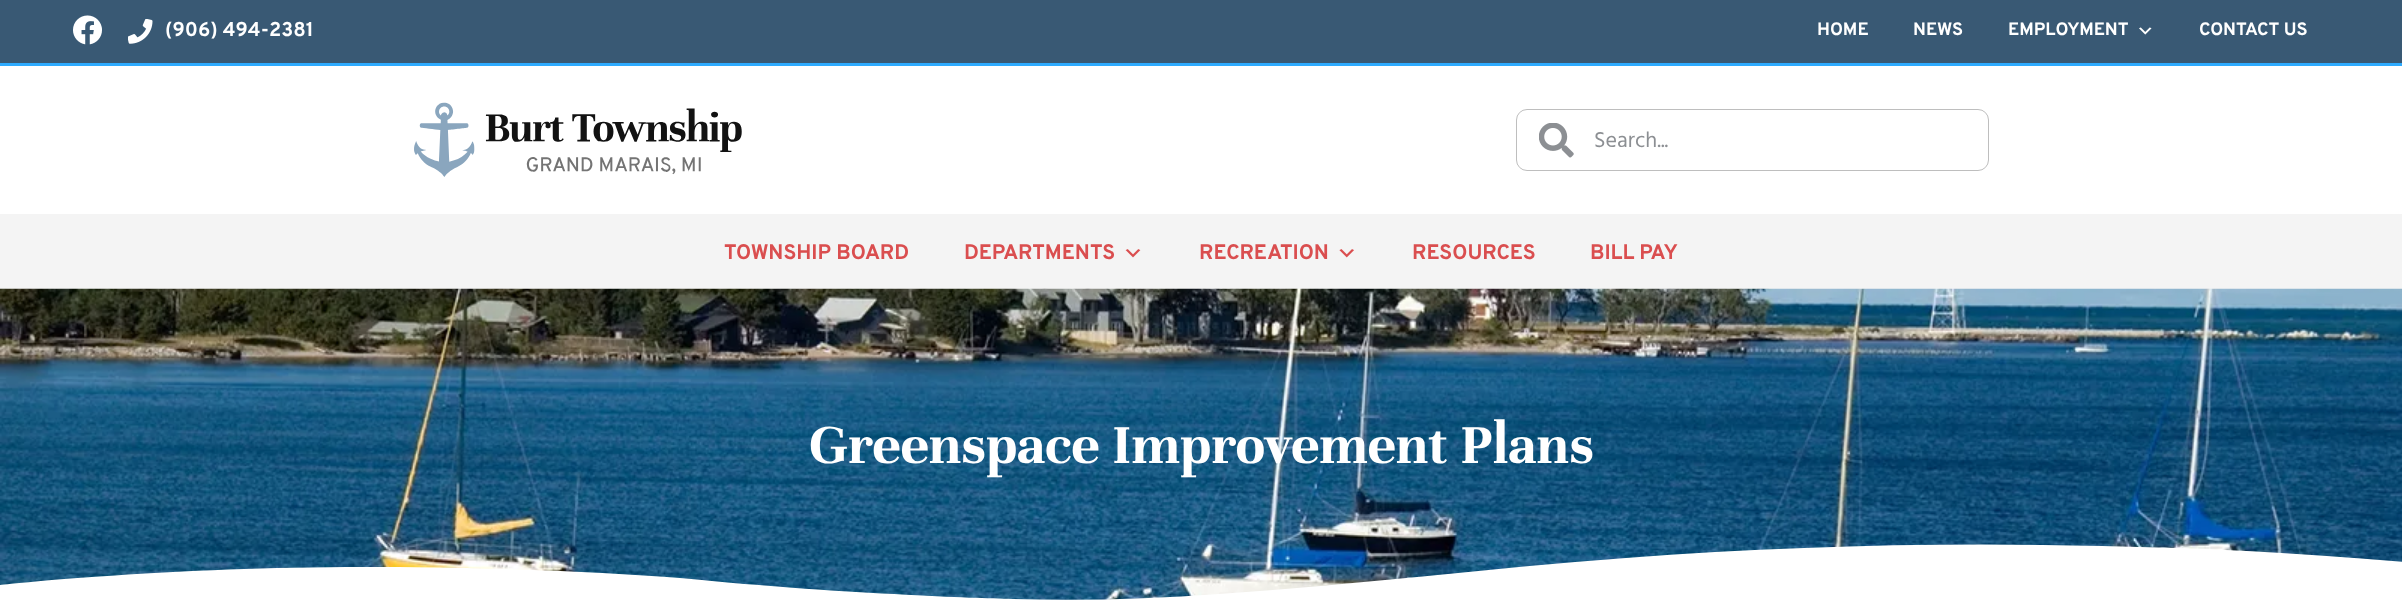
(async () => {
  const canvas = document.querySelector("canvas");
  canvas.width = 2402;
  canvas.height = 612;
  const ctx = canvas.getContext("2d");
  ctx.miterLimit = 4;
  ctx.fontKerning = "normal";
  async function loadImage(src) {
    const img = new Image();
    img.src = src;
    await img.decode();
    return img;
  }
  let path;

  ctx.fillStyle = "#ffffff";
  ctx.fillRect(0, 0, 2402, 612);
  ctx.fillStyle = "#395974";
  ctx.fillRect(0, 0, 2402, 63);
  ctx.fillStyle = "#2eabff";
  ctx.fillRect(0, 63, 2402, 3);
  ctx.drawImage(await loadImage("img/1.png"), 73, 15, 29, 30);
  ctx.drawImage(await loadImage("img/2.png"), 128, 19, 25, 25);
  ctx.drawImage(await loadImage("img/3.png"), 2139, 27, 13, 8);
  ctx.drawImage(await loadImage("img/4.png"), 414, 102, 328, 75);
  ctx.beginPath();
  ctx.roundRect(1516.5, 109.5, 472, 61, 10.5);
  ctx.strokeStyle = "#bebebe";
  ctx.stroke();
  ctx.drawImage(await loadImage("img/5.png"), 1539, 123, 35, 35);
  ctx.fillStyle = "#f4f4f4";
  ctx.fillRect(0, 214, 2402, 75);
  ctx.drawImage(await loadImage("img/6.png"), 1125, 249, 16, 9);
  ctx.drawImage(await loadImage("img/7.png"), 1339, 249, 15, 9);
  ctx.drawImage(await loadImage("img/8.png"), 0, 288, 2402, 312);
  ctx.fillStyle = "#ffffff";
  path = new Path2D("M1013 599C1082 601 1151 599 1219 594C1355 585 1490 568 1626 558C1784 546 1943 542 2102 546C2203 548 2303 553 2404 562V602H-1V585C-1 585 172 566 380 567C474 567 603 571 702 580C753 585 828 591 894 594C959 598 989 598 1013 599Z");
  ctx.fill(path);
  ctx.font = "bold 20px Overpass";
  ctx.fillText("(906) 494-2381", 165, 36);
  ctx.font = "bold 18px Overpass";
  for (const [text, x, y] of [
    ["HOME", 1817, 35],
    ["NEWS", 1913, 35],
    ["EMPLOYMENT", 2008, 35],
    ["CONTACT US", 2199, 35],
  ]) {
    ctx.fillText(text, x, y);
  }
  ctx.font = "22px Hind Siliguri";
  ctx.fillStyle = "#8c8f93";
  ctx.fillText("Search...", 1594, 147);
  ctx.font = "bold 21px Overpass";
  ctx.fillStyle = "#da4e4f";
  for (const [text, x, y] of [
    ["TOWNSHIP BOARD", 724, 259],
    ["DEPARTMENTS", 964, 259],
    ["RECREATION", 1199, 259],
    ["RESOURCES", 1412, 259],
    ["BILL PAY", 1590, 259],
  ]) {
    ctx.fillText(text, x, y);
  }
  ctx.font = "bold 60px Unna";
  ctx.fillStyle = "#ffffff";
  ctx.fillText("Greenspace Improvement Plans", 809, 463);
})();
